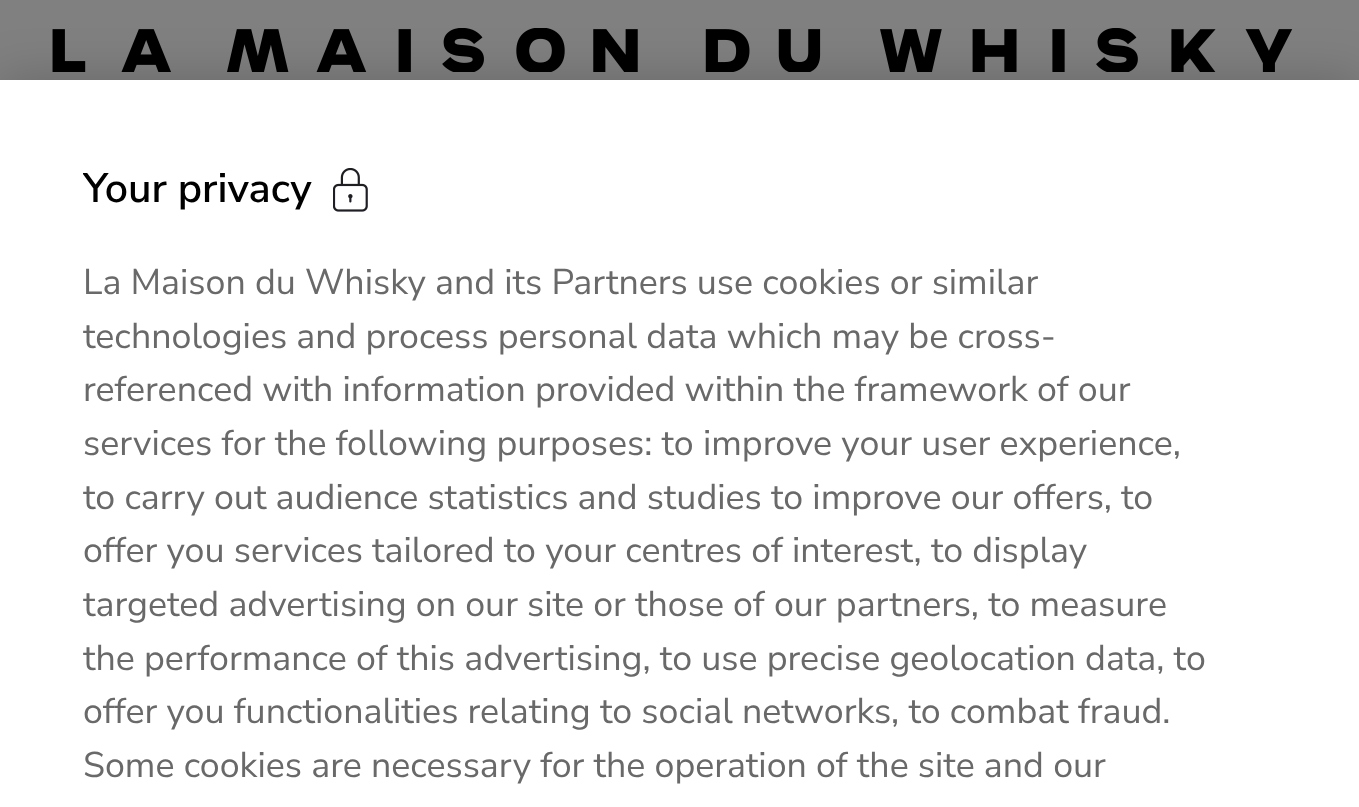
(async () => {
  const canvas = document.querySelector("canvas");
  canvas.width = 1359;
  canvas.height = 807;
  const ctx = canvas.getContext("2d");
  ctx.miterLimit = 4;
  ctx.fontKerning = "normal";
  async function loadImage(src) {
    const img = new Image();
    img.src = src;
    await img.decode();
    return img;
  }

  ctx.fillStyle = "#808080";
  ctx.fillRect(0, 0, 1359, 807);
  ctx.drawImage(await loadImage("img/1.png"), 52, 28, 1241, 44);
  ctx.fillStyle = "rgba(0, 0, 0, 0.2)";
  ctx.filter = "blur(25px)";
  ctx.beginPath();
  ctx.rect(0, 80, 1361, 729);
  ctx.fill();
  ctx.filter = "none";
  ctx.fillStyle = "#ffffff";
  ctx.fillRect(0, 80, 1359, 727);
  ctx.drawImage(await loadImage("img/2.png"), 333, 168, 35, 44);
  ctx.save();
  ctx.beginPath();
  ctx.rect(83, 162, 1135, 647);
  ctx.clip();
  ctx.font = "600 41.25px Nunito Sans";
  ctx.fillStyle = "#000000";
  ctx.fillText("Your privacy", 83, 202);
  ctx.restore();
  ctx.font = "35.75px Nunito Sans";
  ctx.fillStyle = "#696969";
  ctx.fillText("La Maison du Whisky and its Partners use cookies or similar", 83, 294);
  ctx.save();
  ctx.beginPath();
  ctx.rect(83, 162, 1135, 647);
  ctx.clip();
  ctx.fillText("technologies and process personal data which may be cross-", 83, 348);
  ctx.restore();
  ctx.fillText("referenced with information provided within the framework of our", 83, 401);
  ctx.fillText("services for the following purposes: to improve your user experience,", 83, 455);
  ctx.save();
  ctx.beginPath();
  ctx.rect(83, 162, 1135, 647);
  ctx.clip();
  ctx.fillText("to carry out audience statistics and studies to improve our offers, to", 83, 509);
  ctx.restore();
  ctx.fillText("offer you services tailored to your centres of interest, to display", 83, 562);
  ctx.save();
  ctx.beginPath();
  ctx.rect(83, 162, 1135, 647);
  ctx.clip();
  ctx.fillText("targeted advertising on our site or those of our partners, to measure", 83, 616);
  ctx.fillText("the performance of this advertising, to use precise geolocation data, to", 83, 670);
  ctx.restore();
  ctx.fillText("offer you functionalities relating to social networks, to combat fraud.", 83, 723);
  ctx.fillText("Some cookies are necessary for the operation of the site and our", 83, 777);
})();
